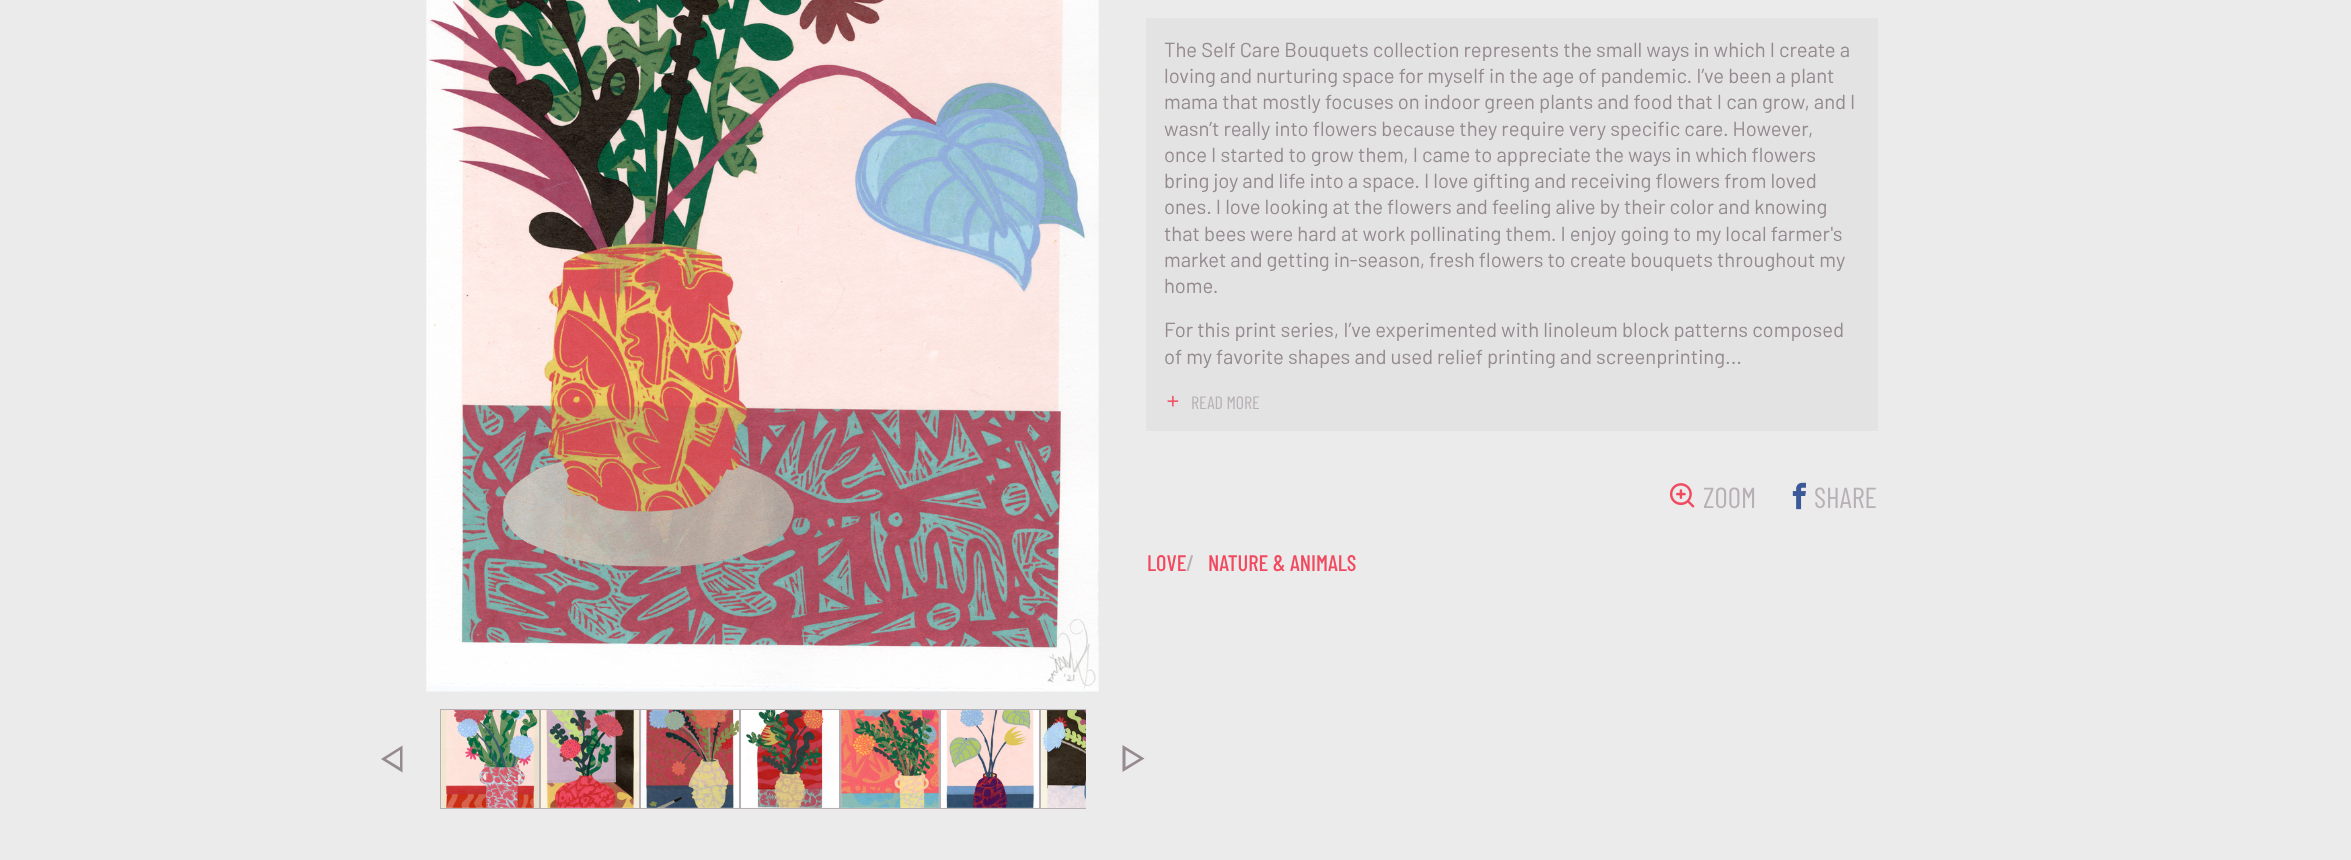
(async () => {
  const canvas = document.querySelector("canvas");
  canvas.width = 2351;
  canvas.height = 860;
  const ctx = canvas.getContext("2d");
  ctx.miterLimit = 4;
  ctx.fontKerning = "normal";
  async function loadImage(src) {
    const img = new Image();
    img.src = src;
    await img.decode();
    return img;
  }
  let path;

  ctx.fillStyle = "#ebebeb";
  ctx.fillRect(0, 0, 2351, 860);
  ctx.drawImage(await loadImage("img/1.png"), 426, 0, 673, 692);
  ctx.strokeStyle = "#b7b0b5";
  ctx.strokeRect(440.5, 709.5, 99, 99);
  ctx.drawImage(await loadImage("img/2.png"), 441, 710, 98, 98);
  ctx.strokeRect(540.5, 709.5, 99, 99);
  ctx.drawImage(await loadImage("img/3.png"), 541, 710, 98, 98);
  ctx.strokeRect(640.5, 709.5, 99, 99);
  ctx.drawImage(await loadImage("img/4.png"), 641, 710, 98, 98);
  ctx.strokeRect(740.5, 709.5, 99, 99);
  ctx.drawImage(await loadImage("img/5.png"), 741, 710, 98, 98);
  ctx.strokeRect(840.5, 709.5, 99, 99);
  ctx.drawImage(await loadImage("img/6.png"), 841, 710, 98, 98);
  ctx.strokeRect(940.5, 709.5, 99, 99);
  ctx.drawImage(await loadImage("img/7.png"), 941, 710, 98, 98);
  ctx.save();
  ctx.beginPath();
  ctx.rect(439, 709, 647, 106);
  ctx.clip();
  ctx.strokeRect(1040.5, 709.5, 99, 99);
  ctx.restore();
  ctx.drawImage(await loadImage("img/8.png"), 1041, 710, 45, 98);
  ctx.fillStyle = "#948a90";
  path = new Path2D("M381 759L402.5 745.5V772.5ZM386 759L400 767.5V750Z");
  ctx.fill(path);
  path = new Path2D("M1144.5 758.5L1122.5 772V745ZM1139.5 758.5L1125.5 750V767Z");
  ctx.fill(path);
  ctx.fillStyle = "#e3e3e3";
  ctx.fillRect(1146, 18, 732, 413);
  ctx.drawImage(await loadImage("img/9.png"), 1167, 395, 12, 12);
  ctx.drawImage(await loadImage("img/10.png"), 1669, 483, 26, 25);
  ctx.drawImage(await loadImage("img/11.png"), 1792, 482, 14, 28);
  ctx.font = "20.25px Barlow";
  ctx.fillStyle = "#948a90";
  for (const [text, x, y] of [
    ["The Self Care Bouquets collection represents the small ways in which I create a", 1164, 57],
    ["loving and nurturing space for myself in the age of pandemic. I’ve been a plant", 1164, 83],
    ["mama that mostly focuses on indoor green plants and food that I can grow, and I", 1164, 109],
    ["wasn’t really into flowers because they require very specific care. However,", 1164, 136],
    ["once I started to grow them, I came to appreciate the ways in which flowers", 1164, 162],
    ["bring joy and life into a space. I love gifting and receiving flowers from loved", 1164, 188],
    ["ones. I love looking at the flowers and feeling alive by their color and knowing", 1164, 214],
    ["that bees were hard at work pollinating them. I enjoy going to my local farmer's", 1164, 241],
    ["market and getting in-season, fresh flowers to create bouquets throughout my", 1164, 267],
    ["home.", 1164, 293],
    ["For this print series, I’ve experimented with linoleum block patterns composed", 1164, 337],
    ["of my favorite shapes and used relief printing and screenprinting...", 1164, 364],
  ]) {
    ctx.fillText(text, x, y);
  }
  ctx.font = "18px Barlow Condensed";
  ctx.fillStyle = "#b7b0b5";
  ctx.fillText("READ MORE", 1191, 409);
  ctx.font = "29px Barlow Condensed";
  ctx.fillText("ZOOM", 1703, 508);
  ctx.fillText("SHARE", 1814, 508);
  ctx.font = "500 22.5px Barlow Condensed";
  ctx.fillStyle = "#f14a60";
  ctx.fillText("LOVE", 1147, 571);
  ctx.fillStyle = "#b7b0b5";
  ctx.fillText("/", 1186, 571);
  ctx.fillStyle = "#f14a60";
  ctx.fillText("NATURE & ANIMALS", 1208, 571);
})();
